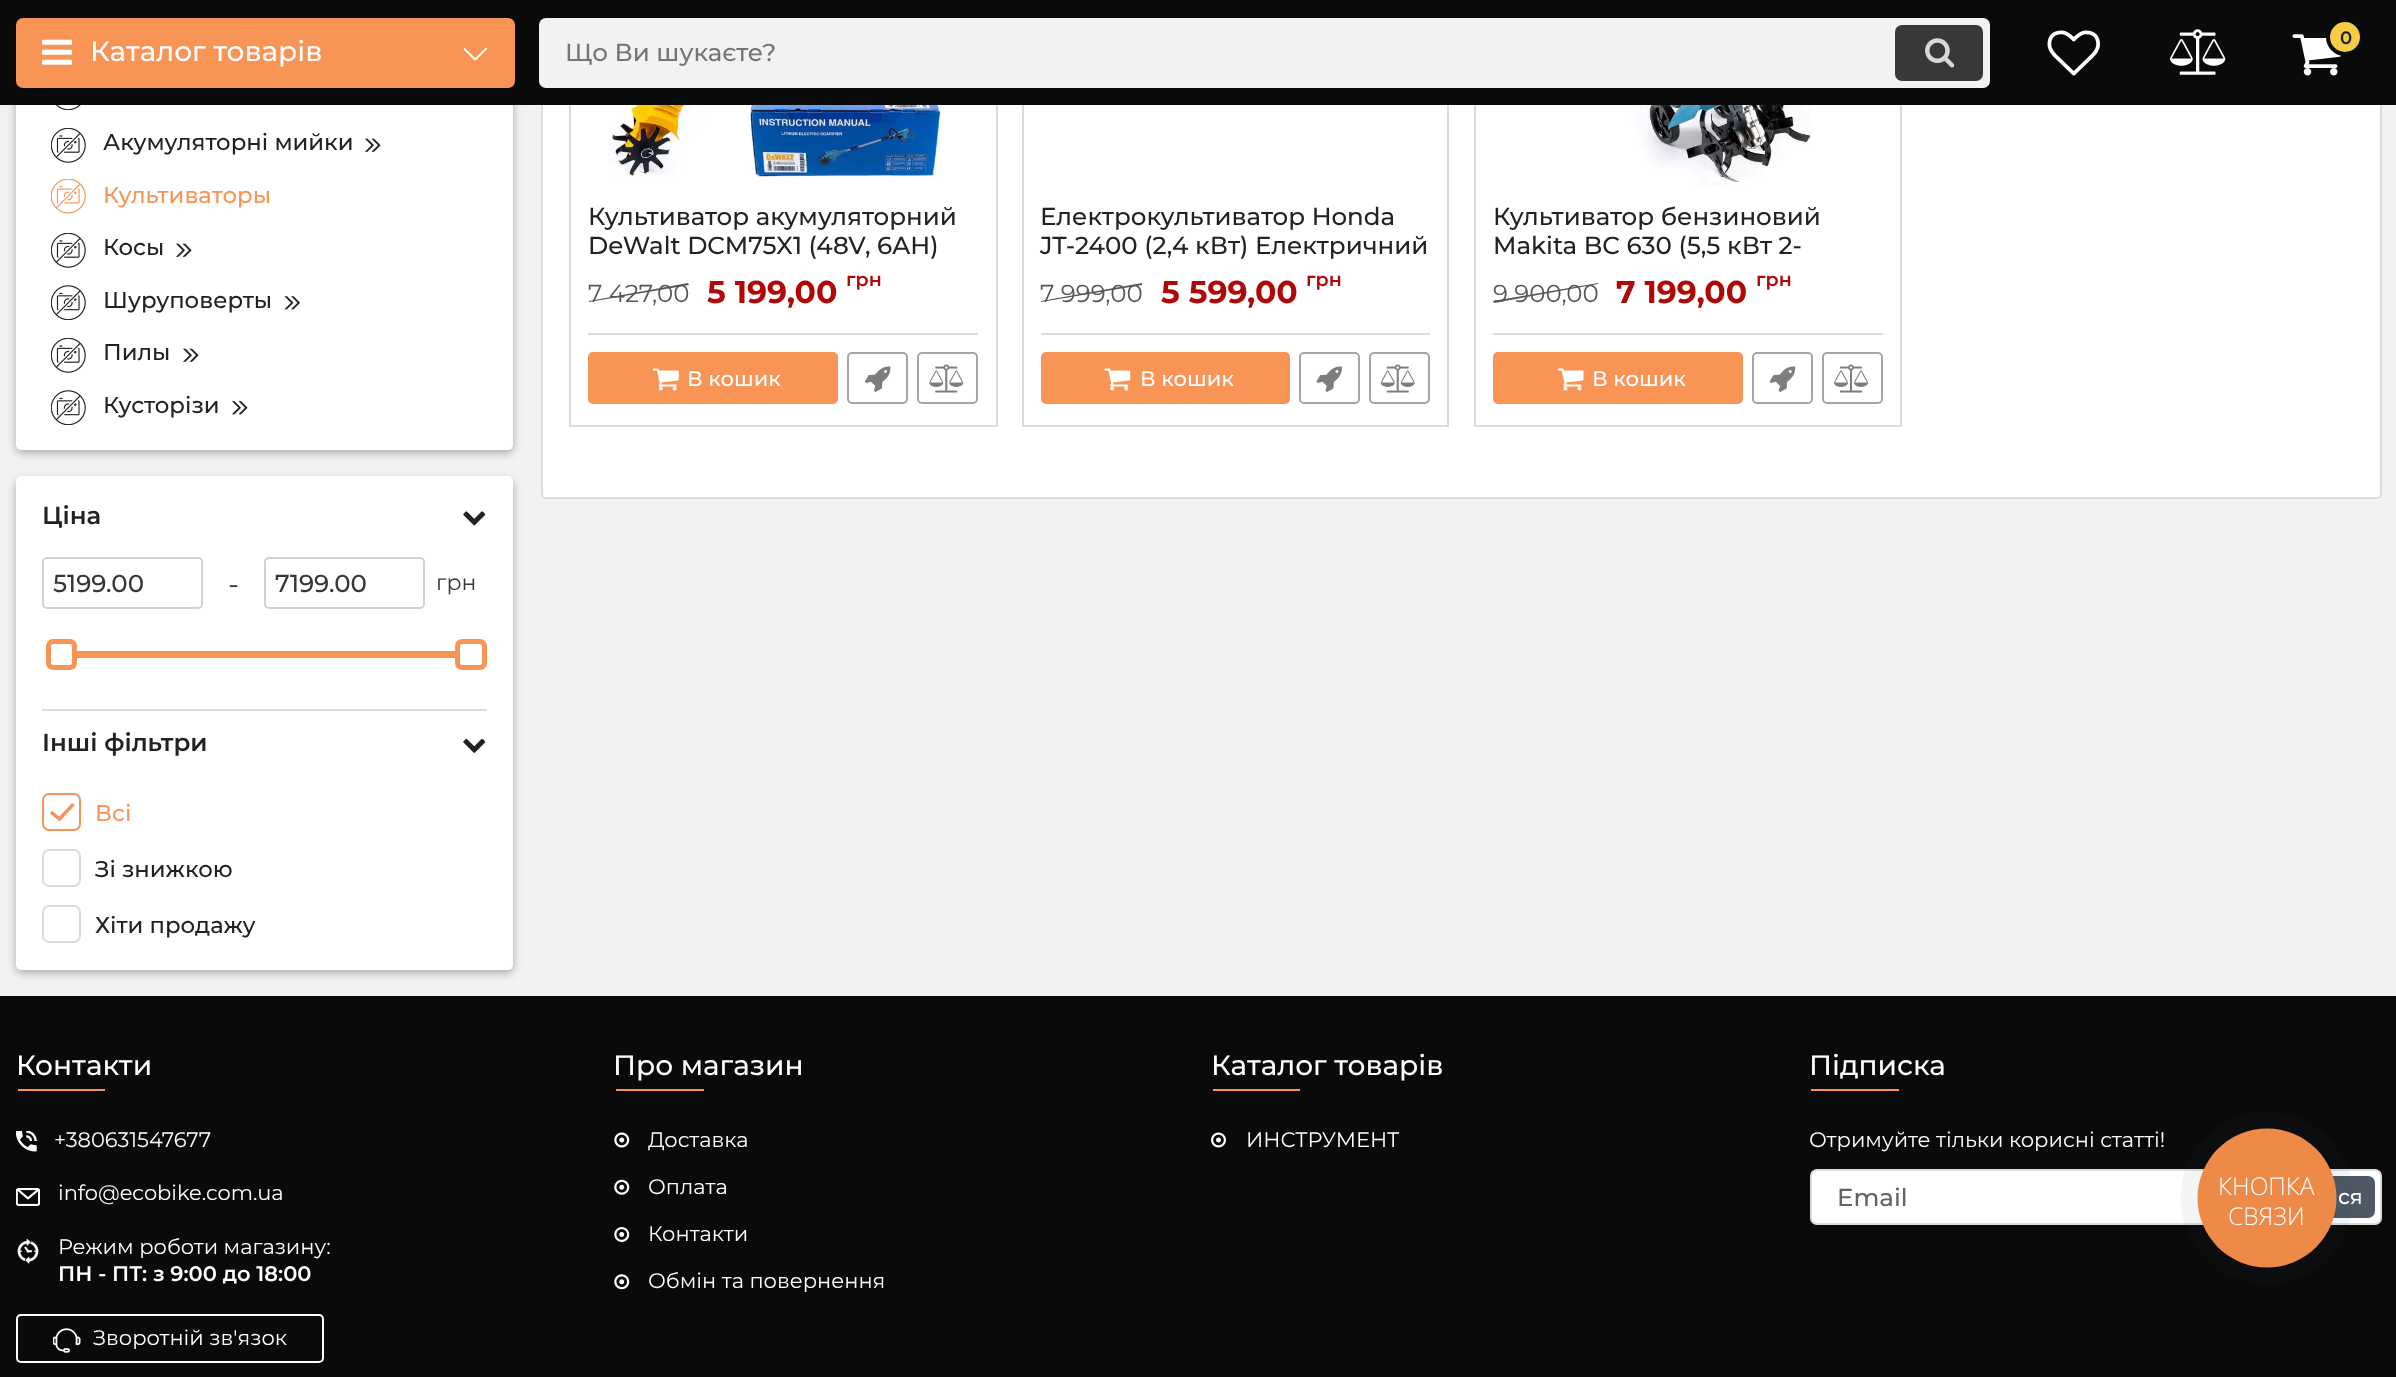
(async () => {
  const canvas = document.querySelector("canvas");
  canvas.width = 2396;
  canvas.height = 1377;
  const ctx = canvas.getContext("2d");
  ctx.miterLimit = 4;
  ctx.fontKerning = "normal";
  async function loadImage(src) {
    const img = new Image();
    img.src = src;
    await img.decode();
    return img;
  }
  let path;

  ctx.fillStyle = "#f2f2f2";
  ctx.fillRect(0, 0, 2396, 1377);
  ctx.fillStyle = "rgba(0, 0, 0, 0.3)";
  ctx.filter = "blur(4.5px)";
  ctx.beginPath();
  ctx.roundRect(16, -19, 497, 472, 5);
  ctx.fill();
  ctx.filter = "none";
  ctx.fillStyle = "#ffffff";
  ctx.beginPath();
  ctx.roundRect(16, -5, 497, 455, 5);
  ctx.fill();
  ctx.beginPath();
  ctx.roundRect(542, -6, 1839, 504, 4);
  ctx.fill();
  ctx.strokeStyle = "#dbdbdb";
  ctx.lineWidth = 2;
  ctx.stroke();
  ctx.strokeRect(570, -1, 427, 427);
  ctx.strokeRect(1023, -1, 425, 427);
  ctx.strokeRect(1475, -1, 426, 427);
  ctx.fillStyle = "#0a0a0a";
  ctx.fillRect(0, 0, 2396, 105);
  ctx.fillStyle = "#f79456";
  ctx.beginPath();
  ctx.roundRect(16, 18, 499, 70, 7);
  ctx.fill();
  ctx.drawImage(await loadImage("img/1.png"), 42, 39, 30, 26);
  ctx.drawImage(await loadImage("img/2.png"), 463, 47, 25, 14);
  ctx.fillStyle = "#f2f2f2";
  ctx.beginPath();
  ctx.roundRect(539, 18, 1451, 70, 7);
  ctx.fill();
  ctx.fillStyle = "#383838";
  ctx.beginPath();
  ctx.roundRect(1895, 25, 88, 56, 7);
  ctx.fill();
  ctx.drawImage(await loadImage("img/3.png"), 1925, 38, 30, 30);
  ctx.drawImage(await loadImage("img/4.png"), 2047, 30, 53, 46);
  ctx.drawImage(await loadImage("img/5.png"), 2170, 29, 56, 46);
  ctx.drawImage(await loadImage("img/6.png"), 2292, 34, 50, 42);
  ctx.fillStyle = "#f5cc43";
  ctx.beginPath();
  ctx.arc(2345, 37, 17, 0, Math.PI * 2);
  ctx.fill();
  ctx.strokeStyle = "#0a0a0a";
  ctx.lineWidth = 4;
  ctx.stroke();
  ctx.drawImage(await loadImage("img/7.png"), 55, 105, 26, 5);
  ctx.drawImage(await loadImage("img/8.png"), 51, 128, 35, 35);
  ctx.drawImage(await loadImage("img/9.png"), 365, 138, 16, 14);
  ctx.drawImage(await loadImage("img/10.png"), 51, 179, 35, 35);
  ctx.drawImage(await loadImage("img/8.png"), 51, 233, 35, 35);
  ctx.drawImage(await loadImage("img/9.png"), 176, 243, 16, 14);
  ctx.drawImage(await loadImage("img/11.png"), 51, 285, 35, 35);
  ctx.drawImage(await loadImage("img/12.png"), 284, 296, 16, 14);
  ctx.drawImage(await loadImage("img/8.png"), 51, 338, 35, 35);
  ctx.drawImage(await loadImage("img/9.png"), 183, 348, 16, 14);
  ctx.drawImage(await loadImage("img/11.png"), 51, 390, 35, 35);
  ctx.drawImage(await loadImage("img/13.png"), 232, 401, 16, 14);
  ctx.fillStyle = "rgba(0, 0, 0, 0.3)";
  ctx.filter = "blur(4.5px)";
  ctx.beginPath();
  ctx.roundRect(16, 480, 497, 493, 5);
  ctx.fill();
  ctx.filter = "none";
  ctx.fillStyle = "#ffffff";
  ctx.beginPath();
  ctx.roundRect(16, 476, 497, 494, 5);
  ctx.fill();
  ctx.drawImage(await loadImage("img/14.png"), 463, 511, 23, 15);
  ctx.fillStyle = "#dbdbdb";
  ctx.fillRect(42, 709, 445, 2);
  ctx.beginPath();
  ctx.roundRect(43, 558, 159, 50, 4);
  ctx.strokeStyle = "#d1d1d1";
  ctx.lineWidth = 2;
  ctx.stroke();
  ctx.beginPath();
  ctx.roundRect(265, 558, 159, 50, 4);
  ctx.stroke();
  ctx.beginPath();
  ctx.roundRect(48.5, 641.5, 26, 26, 4.5);
  ctx.strokeStyle = "#f79456";
  ctx.lineWidth = 5;
  ctx.stroke();
  ctx.fillStyle = "#f79456";
  ctx.fillRect(77, 651, 378, 7);
  ctx.beginPath();
  ctx.roundRect(457.5, 641.5, 27, 26, 4.5);
  ctx.stroke();
  ctx.drawImage(await loadImage("img/15.png"), 463, 738, 23, 15);
  ctx.beginPath();
  ctx.roundRect(43, 794, 37, 36, 6);
  ctx.lineWidth = 2;
  ctx.stroke();
  path = new Path2D("M51 812L59.5 819L73.5 804");
  ctx.lineWidth = 3.5;
  ctx.stroke(path);
  ctx.beginPath();
  ctx.roundRect(43, 850, 37, 36, 6);
  ctx.strokeStyle = "#dbdbdb";
  ctx.lineWidth = 2;
  ctx.stroke();
  ctx.beginPath();
  ctx.roundRect(43, 906, 37, 36, 6);
  ctx.stroke();
  ctx.drawImage(await loadImage("img/16.png"), 608, 105, 336, 73);
  ctx.fillStyle = "#575757";
  path = new Path2D("M589 301L688 283L689 285L589 302Z");
  ctx.fill(path);
  ctx.fillStyle = "#dbdbdb";
  ctx.fillRect(588, 333, 390, 2);
  ctx.fillStyle = "#f79456";
  ctx.beginPath();
  ctx.roundRect(589, 353, 248, 50, 4);
  ctx.fill();
  ctx.strokeStyle = "#f79456";
  ctx.stroke();
  ctx.drawImage(await loadImage("img/17.png"), 652, 368, 27, 23);
  ctx.beginPath();
  ctx.roundRect(848, 353, 59, 50, 4);
  ctx.strokeStyle = "#a5a5a5";
  ctx.stroke();
  ctx.drawImage(await loadImage("img/18.png"), 865, 366, 26, 26);
  ctx.beginPath();
  ctx.roundRect(918, 353, 59, 50, 4);
  ctx.stroke();
  ctx.drawImage(await loadImage("img/19.png"), 929, 364, 35, 29);
  ctx.fillStyle = "#575757";
  path = new Path2D("M1041 301L1142 283V285L1041 302Z");
  ctx.fill(path);
  ctx.fillStyle = "#dbdbdb";
  ctx.fillRect(1041, 333, 389, 2);
  ctx.fillStyle = "#f79456";
  ctx.beginPath();
  ctx.roundRect(1042, 353, 247, 50, 4);
  ctx.fill();
  ctx.strokeStyle = "#f79456";
  ctx.stroke();
  ctx.drawImage(await loadImage("img/20.png"), 1104, 368, 27, 23);
  ctx.beginPath();
  ctx.roundRect(1300, 353, 59, 50, 4);
  ctx.strokeStyle = "#a5a5a5";
  ctx.stroke();
  ctx.drawImage(await loadImage("img/21.png"), 1316, 366, 26, 26);
  ctx.beginPath();
  ctx.roundRect(1370, 353, 59, 50, 4);
  ctx.stroke();
  ctx.drawImage(await loadImage("img/22.png"), 1380, 364, 35, 29);
  ctx.drawImage(await loadImage("img/23.png"), 1580, 105, 231, 81);
  ctx.fillStyle = "#575757";
  path = new Path2D("M1493 301L1598 283V284L1494 303Z");
  ctx.fill(path);
  ctx.fillStyle = "#dbdbdb";
  ctx.fillRect(1493, 333, 390, 2);
  ctx.fillStyle = "#f79456";
  ctx.beginPath();
  ctx.roundRect(1494, 353, 248, 50, 4);
  ctx.fill();
  ctx.strokeStyle = "#f79456";
  ctx.stroke();
  ctx.drawImage(await loadImage("img/24.png"), 1557, 368, 27, 23);
  ctx.beginPath();
  ctx.roundRect(1753, 353, 59, 50, 4);
  ctx.strokeStyle = "#a5a5a5";
  ctx.stroke();
  ctx.drawImage(await loadImage("img/25.png"), 1769, 366, 27, 26);
  ctx.beginPath();
  ctx.roundRect(1823, 353, 59, 50, 4);
  ctx.stroke();
  ctx.drawImage(await loadImage("img/26.png"), 1834, 364, 34, 29);
  ctx.fillStyle = "#0a0a0a";
  ctx.fillRect(0, 996, 2396, 381);
  ctx.fillStyle = "#f79456";
  ctx.fillRect(18, 1089, 87, 2);
  ctx.drawImage(await loadImage("img/27.png"), 16, 1131, 21, 21);
  ctx.drawImage(await loadImage("img/28.png"), 16, 1188, 24, 18);
  ctx.drawImage(await loadImage("img/29.png"), 17, 1239, 22, 25);
  ctx.beginPath();
  ctx.roundRect(17, 1315, 306, 47, 4);
  ctx.strokeStyle = "#ffffff";
  ctx.stroke();
  ctx.drawImage(await loadImage("img/30.png"), 53, 1328, 28, 25);
  ctx.fillRect(616, 1089, 88, 2);
  ctx.drawImage(await loadImage("img/31.png"), 614, 1132, 16, 16);
  ctx.drawImage(await loadImage("img/32.png"), 614, 1179, 16, 16);
  ctx.drawImage(await loadImage("img/33.png"), 614, 1227, 16, 15);
  ctx.drawImage(await loadImage("img/34.png"), 614, 1274, 16, 16);
  ctx.fillRect(1213, 1089, 87, 2);
  ctx.drawImage(await loadImage("img/35.png"), 1211, 1132, 15, 16);
  ctx.fillRect(1811, 1089, 88, 2);
  ctx.fillStyle = "#ffffff";
  ctx.beginPath();
  ctx.roundRect(1811, 1170, 570, 54, 6);
  ctx.fill();
  ctx.strokeStyle = "#dbdbdb";
  ctx.stroke();
  ctx.fillStyle = "#4f5965";
  ctx.beginPath();
  ctx.roundRect(2210, 1176, 165, 42, 7);
  ctx.fill();
  ctx.fillStyle = "rgba(42, 64, 93, 0.06)";
  ctx.beginPath();
  ctx.arc(2267, 1198, 86.5, 0, Math.PI * 2);
  ctx.fill();
  ctx.fillStyle = "#ed8a47";
  ctx.beginPath();
  ctx.arc(2267, 1198, 69.5, 0, Math.PI * 2);
  ctx.fill();
  ctx.font = "500 28px Montserrat";
  ctx.fillStyle = "#ffffff";
  ctx.fillText("Каталог товарів", 90, 61);
  ctx.font = "500 24.5px Montserrat";
  ctx.fillStyle = "#757575";
  ctx.fillText("Що Ви шукаєте?", 565, 61);
  ctx.font = "600 18px Montserrat";
  ctx.fillStyle = "#222222";
  ctx.fillText("0", 2340, 44);
  ctx.font = "500 22.75px Montserrat";
  ctx.fillText("Акумуляторні мийки", 103, 150);
  ctx.fillStyle = "#f79456";
  ctx.fillText("Культиваторы", 103, 203);
  ctx.fillStyle = "#222222";
  for (const [text, x, y] of [
    ["Косы", 103, 255],
    ["Шуруповерты", 103, 308],
    ["Пилы", 103, 360],
    ["Кусторізи", 103, 413],
  ]) {
    ctx.fillText(text, x, y);
  }
  ctx.font = "600 24.5px Montserrat";
  ctx.fillText("Ціна", 42, 524);
  ctx.font = "500 24.5px Montserrat";
  ctx.fillStyle = "#363636";
  ctx.fillText("5199.00", 53, 592);
  ctx.font = "29px Montserrat";
  ctx.fillText("-", 228, 594);
  ctx.font = "500 24.5px Montserrat";
  ctx.fillText("7199.00", 275, 592);
  ctx.font = "22px Montserrat";
  ctx.fillText("грн", 436, 590);
  ctx.font = "600 24.5px Montserrat";
  ctx.fillStyle = "#222222";
  ctx.fillText("Інші фільтри", 42, 751);
  ctx.font = "500 22.75px Montserrat";
  ctx.fillStyle = "#f79456";
  ctx.fillText("Всі", 95, 821);
  ctx.fillStyle = "#222222";
  ctx.fillText("Зі знижкою", 95, 877);
  ctx.fillText("Хіти продажу", 95, 933);
  ctx.font = "500 24.5px Montserrat";
  ctx.fillText("Культиватор акумуляторний", 588, 225);
  ctx.fillText("DeWalt DCM75X1 (48V, 6AH)", 588, 254);
  ctx.font = "24.5px Montserrat";
  ctx.fillStyle = "#575757";
  ctx.fillText("7 427,00", 588, 302);
  ctx.font = "bold 31.5px Montserrat";
  ctx.fillStyle = "#b10707";
  ctx.fillText("5 199,00", 707, 303);
  ctx.font = "600 19px Montserrat";
  ctx.fillText("грн", 846, 286);
  ctx.font = "500 21px Montserrat";
  ctx.fillStyle = "#ffffff";
  ctx.fillText("В кошик", 687, 386);
  ctx.font = "500 24.5px Montserrat";
  ctx.fillStyle = "#222222";
  ctx.fillText("Електрокультиватор Honda", 1040, 225);
  ctx.fillText("JT-2400 (2,4 кВт) Електричний", 1040, 254);
  ctx.font = "24.5px Montserrat";
  ctx.fillStyle = "#575757";
  ctx.fillText("7 999,00", 1040, 302);
  ctx.font = "bold 31.5px Montserrat";
  ctx.fillStyle = "#b10707";
  ctx.fillText("5 599,00", 1161, 303);
  ctx.font = "600 19px Montserrat";
  ctx.fillText("грн", 1306, 286);
  ctx.font = "500 21px Montserrat";
  ctx.fillStyle = "#ffffff";
  ctx.fillText("В кошик", 1140, 386);
  ctx.font = "500 24.5px Montserrat";
  ctx.fillStyle = "#222222";
  ctx.fillText("Культиватор бензиновий", 1493, 225);
  ctx.fillText("Makita BC 630 (5,5 кВт 2-", 1493, 254);
  ctx.font = "24.5px Montserrat";
  ctx.fillStyle = "#575757";
  ctx.fillText("9 900,00", 1493, 302);
  ctx.font = "bold 31.5px Montserrat";
  ctx.fillStyle = "#b10707";
  ctx.fillText("7 199,00", 1616, 303);
  ctx.font = "600 19px Montserrat";
  ctx.fillText("грн", 1756, 286);
  ctx.font = "500 21px Montserrat";
  ctx.fillStyle = "#ffffff";
  ctx.fillText("В кошик", 1592, 386);
  ctx.font = "500 28px Montserrat";
  ctx.fillText("Контакти", 16, 1075);
  ctx.font = "21px Montserrat";
  for (const [text, x, y] of [
    ["+380631547677", 54, 1147],
    ["info@ecobike.com.ua", 58, 1200],
    ["Режим роботи магазину:", 58, 1254],
  ]) {
    ctx.fillText(text, x, y);
  }
  ctx.font = "600 21px Montserrat";
  ctx.fillText("ПН - ПТ: з 9:00 до 18:00", 58, 1281);
  ctx.font = "21px Montserrat";
  ctx.fillText("Зворотній зв'язок", 93, 1345);
  ctx.font = "500 28px Montserrat";
  ctx.fillText("Про магазин", 613, 1075);
  ctx.font = "21px Montserrat";
  for (const [text, x, y] of [
    ["Доставка", 648, 1147],
    ["Оплата", 648, 1194],
    ["Контакти", 648, 1241],
    ["Обмін та повернення", 648, 1288],
  ]) {
    ctx.fillText(text, x, y);
  }
  ctx.font = "500 28px Montserrat";
  ctx.fillText("Каталог товарів", 1211, 1075);
  ctx.font = "21px Montserrat";
  ctx.fillText("ИНСТРУМЕНТ", 1246, 1147);
  ctx.font = "500 28px Montserrat";
  ctx.fillText("Підписка", 1809, 1075);
  ctx.font = "21px Montserrat";
  ctx.fillText("Отримуйте тільки корисні статті!", 1809, 1147);
  ctx.font = "500 24.5px Montserrat";
  ctx.fillStyle = "#626262";
  ctx.fillText("Email", 1837, 1206);
  ctx.font = "500 21px Montserrat";
  ctx.fillStyle = "#ffffff";
  ctx.fillText("ся", 2338, 1204);
  ctx.font = "300 24.5px Open Sans";
  ctx.fillText("КНОПКА", 2218, 1195);
  ctx.fillText("СВЯЗИ", 2228, 1225);
})();
